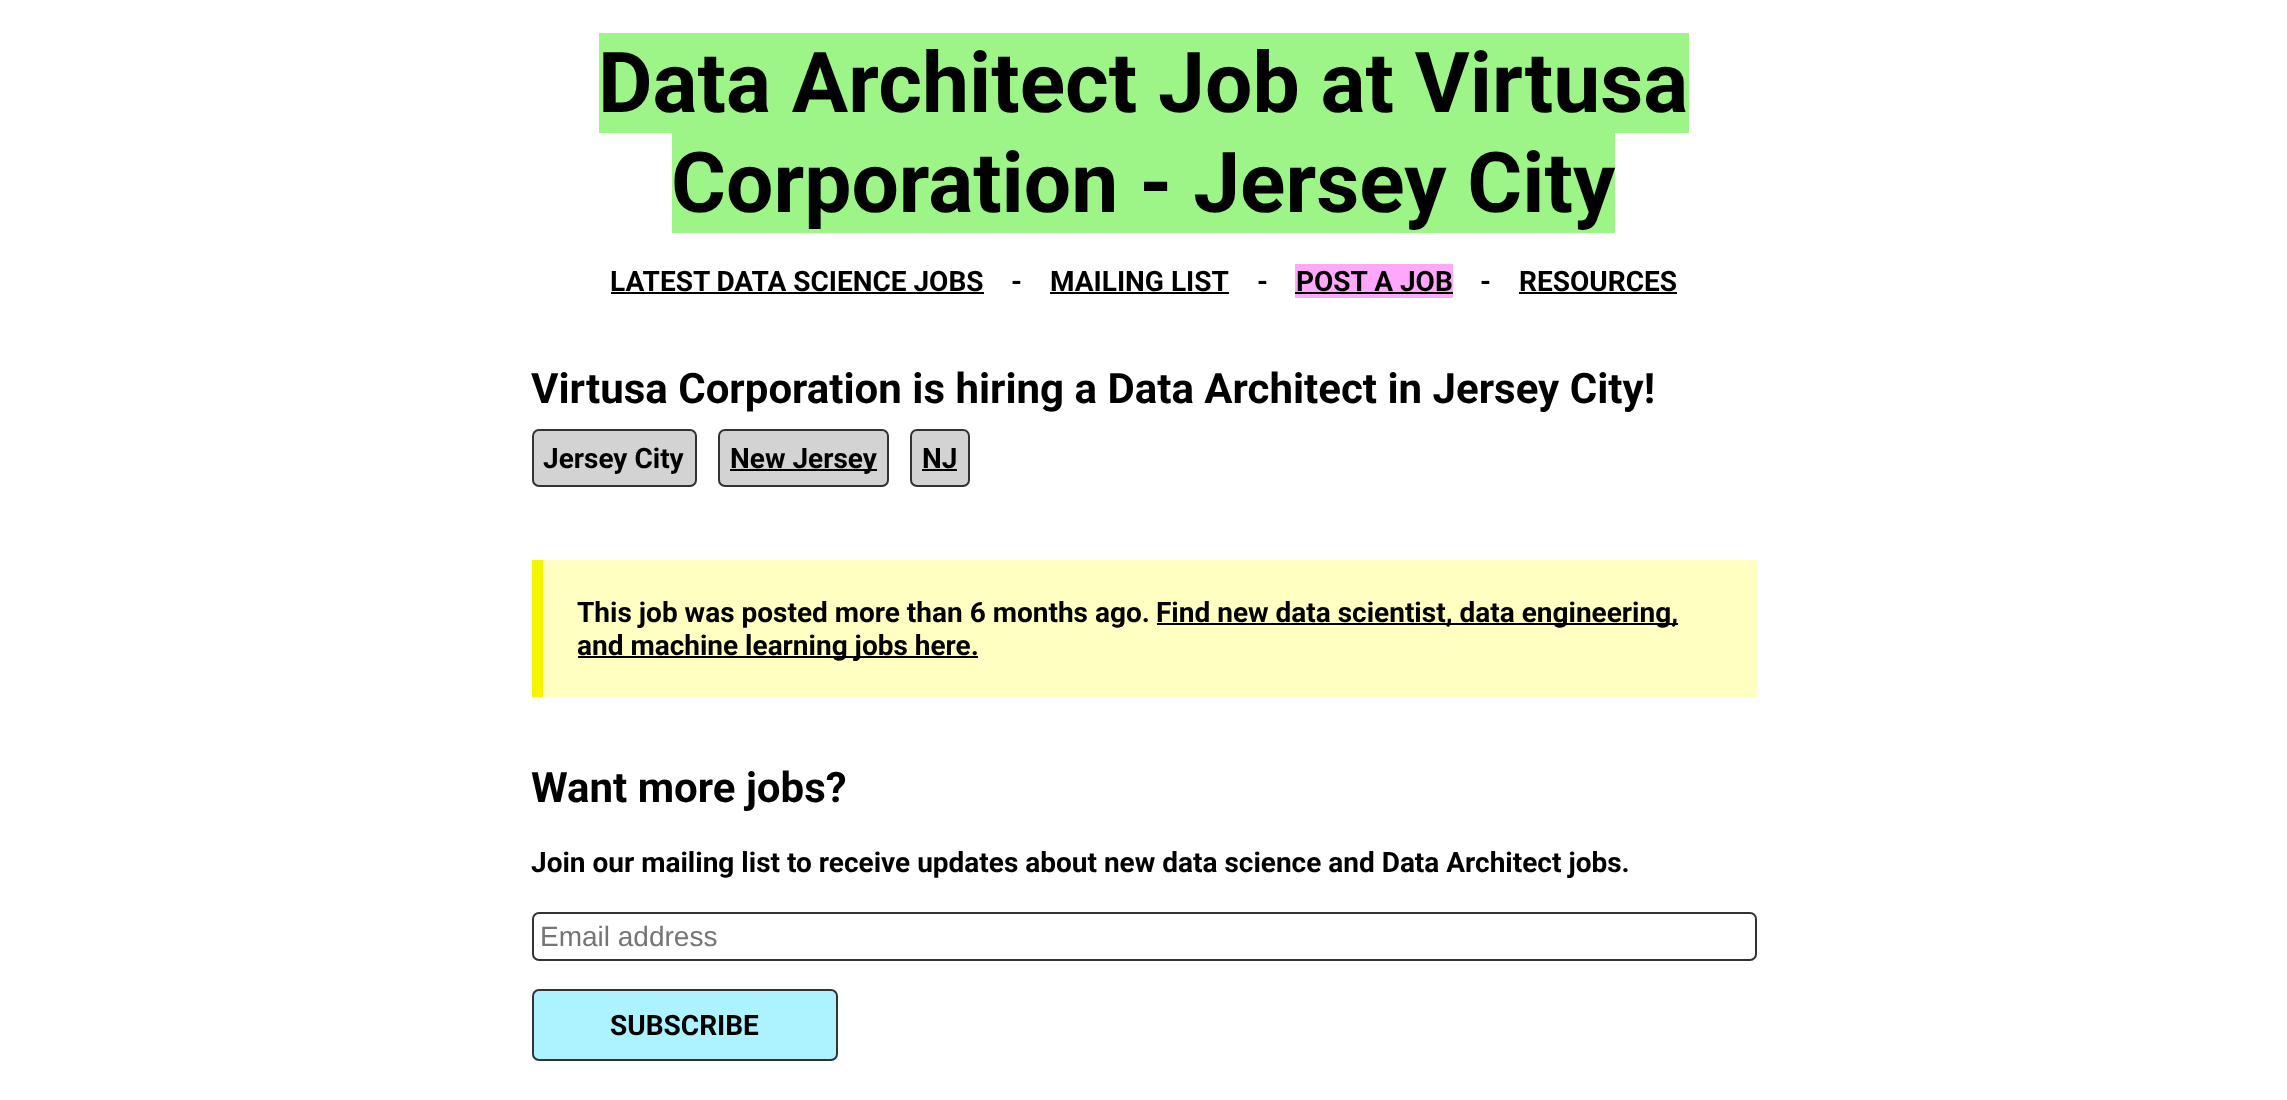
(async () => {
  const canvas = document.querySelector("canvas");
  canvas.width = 2287;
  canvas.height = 1100;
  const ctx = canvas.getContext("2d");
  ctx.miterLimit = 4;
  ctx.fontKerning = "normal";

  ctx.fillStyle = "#ffffff";
  ctx.fillRect(0, 0, 2287, 1100);
  for (const [x, y, w, h, color] of [
    [599, 33, 1090, 100, "#9cf586"],
    [672, 133, 943, 100, "#9cf586"],
    [611, 292, 373, 2, "#000000"],
    [1050, 292, 179, 2, "#000000"],
    [1295, 264, 158, 34, "#ffa7fb"],
    [1295, 292, 158, 2, "#000000"],
    [1519, 292, 158, 2, "#000000"],
  ]) {
    ctx.fillStyle = color;
    ctx.fillRect(x, y, w, h);
  }
  ctx.fillStyle = "#d3d3d3";
  ctx.beginPath();
  ctx.roundRect(533, 430, 163, 56, 6);
  ctx.fill();
  ctx.strokeStyle = "#333333";
  ctx.lineWidth = 2;
  ctx.stroke();
  ctx.beginPath();
  ctx.roundRect(719, 430, 169, 56, 6);
  ctx.fill();
  ctx.stroke();
  ctx.fillStyle = "#000000";
  ctx.fillRect(730, 469, 147, 2);
  ctx.fillStyle = "#d3d3d3";
  ctx.beginPath();
  ctx.roundRect(911, 430, 58, 56, 6);
  ctx.fill();
  ctx.stroke();
  for (const [x, y, w, h, color] of [
    [922, 469, 35, 2, "#000000"],
    [543, 560, 1214, 137, "#ffffc2"],
    [532, 560, 11, 137, "#f5f500"],
    [1157, 623, 521, 2, "#000000"],
    [578, 656, 400, 2, "#000000"],
  ]) {
    ctx.fillStyle = color;
    ctx.fillRect(x, y, w, h);
  }
  ctx.beginPath();
  ctx.roundRect(533, 913, 1223, 47, 6);
  ctx.stroke();
  ctx.fillStyle = "#acf2ff";
  ctx.beginPath();
  ctx.roundRect(533, 990, 304, 70, 6);
  ctx.fill();
  ctx.stroke();
  ctx.font = "bold 84px Roboto";
  ctx.fillStyle = "#000000";
  ctx.fillText("Data Architect Job at Virtusa", 598, 112);
  ctx.fillText("Corporation - Jersey City", 671, 212);
  ctx.font = "bold 28px Roboto";
  for (const [text, x, y] of [
    ["LATEST DATA SCIENCE JOBS", 610, 291],
    ["-", 1011, 291],
    ["MAILING LIST", 1050, 291],
    ["-", 1257, 291],
    ["POST A JOB", 1296, 291],
    ["-", 1480, 291],
    ["RESOURCES", 1519, 291],
  ]) {
    ctx.fillText(text, x, y);
  }
  ctx.font = "bold 42px Roboto";
  ctx.fillText("Virtusa Corporation is hiring a Data Architect in Jersey City!", 531, 403);
  ctx.font = "bold 28px Roboto";
  for (const [text, x, y] of [
    ["Jersey City", 543, 468],
    ["New Jersey", 730, 468],
    ["NJ", 922, 468],
    ["This job was posted more than 6 months ago.", 577, 622],
    ["Find new data scientist, data engineering,", 1156, 622],
    ["and machine learning jobs here.", 577, 655],
  ]) {
    ctx.fillText(text, x, y);
  }
  ctx.font = "bold 42px Roboto";
  ctx.fillText("Want more jobs?", 531, 802);
  ctx.font = "bold 28px Roboto";
  ctx.fillText("Join our mailing list to receive updates about new data science and Data Architect jobs.", 531, 872);
  ctx.font = "28px Liberation Sans";
  ctx.fillStyle = "#757575";
  ctx.fillText("Email address", 540, 946);
  ctx.font = "bold 28px Roboto";
  ctx.fillStyle = "#000000";
  ctx.fillText("SUBSCRIBE", 610, 1035);
})();
